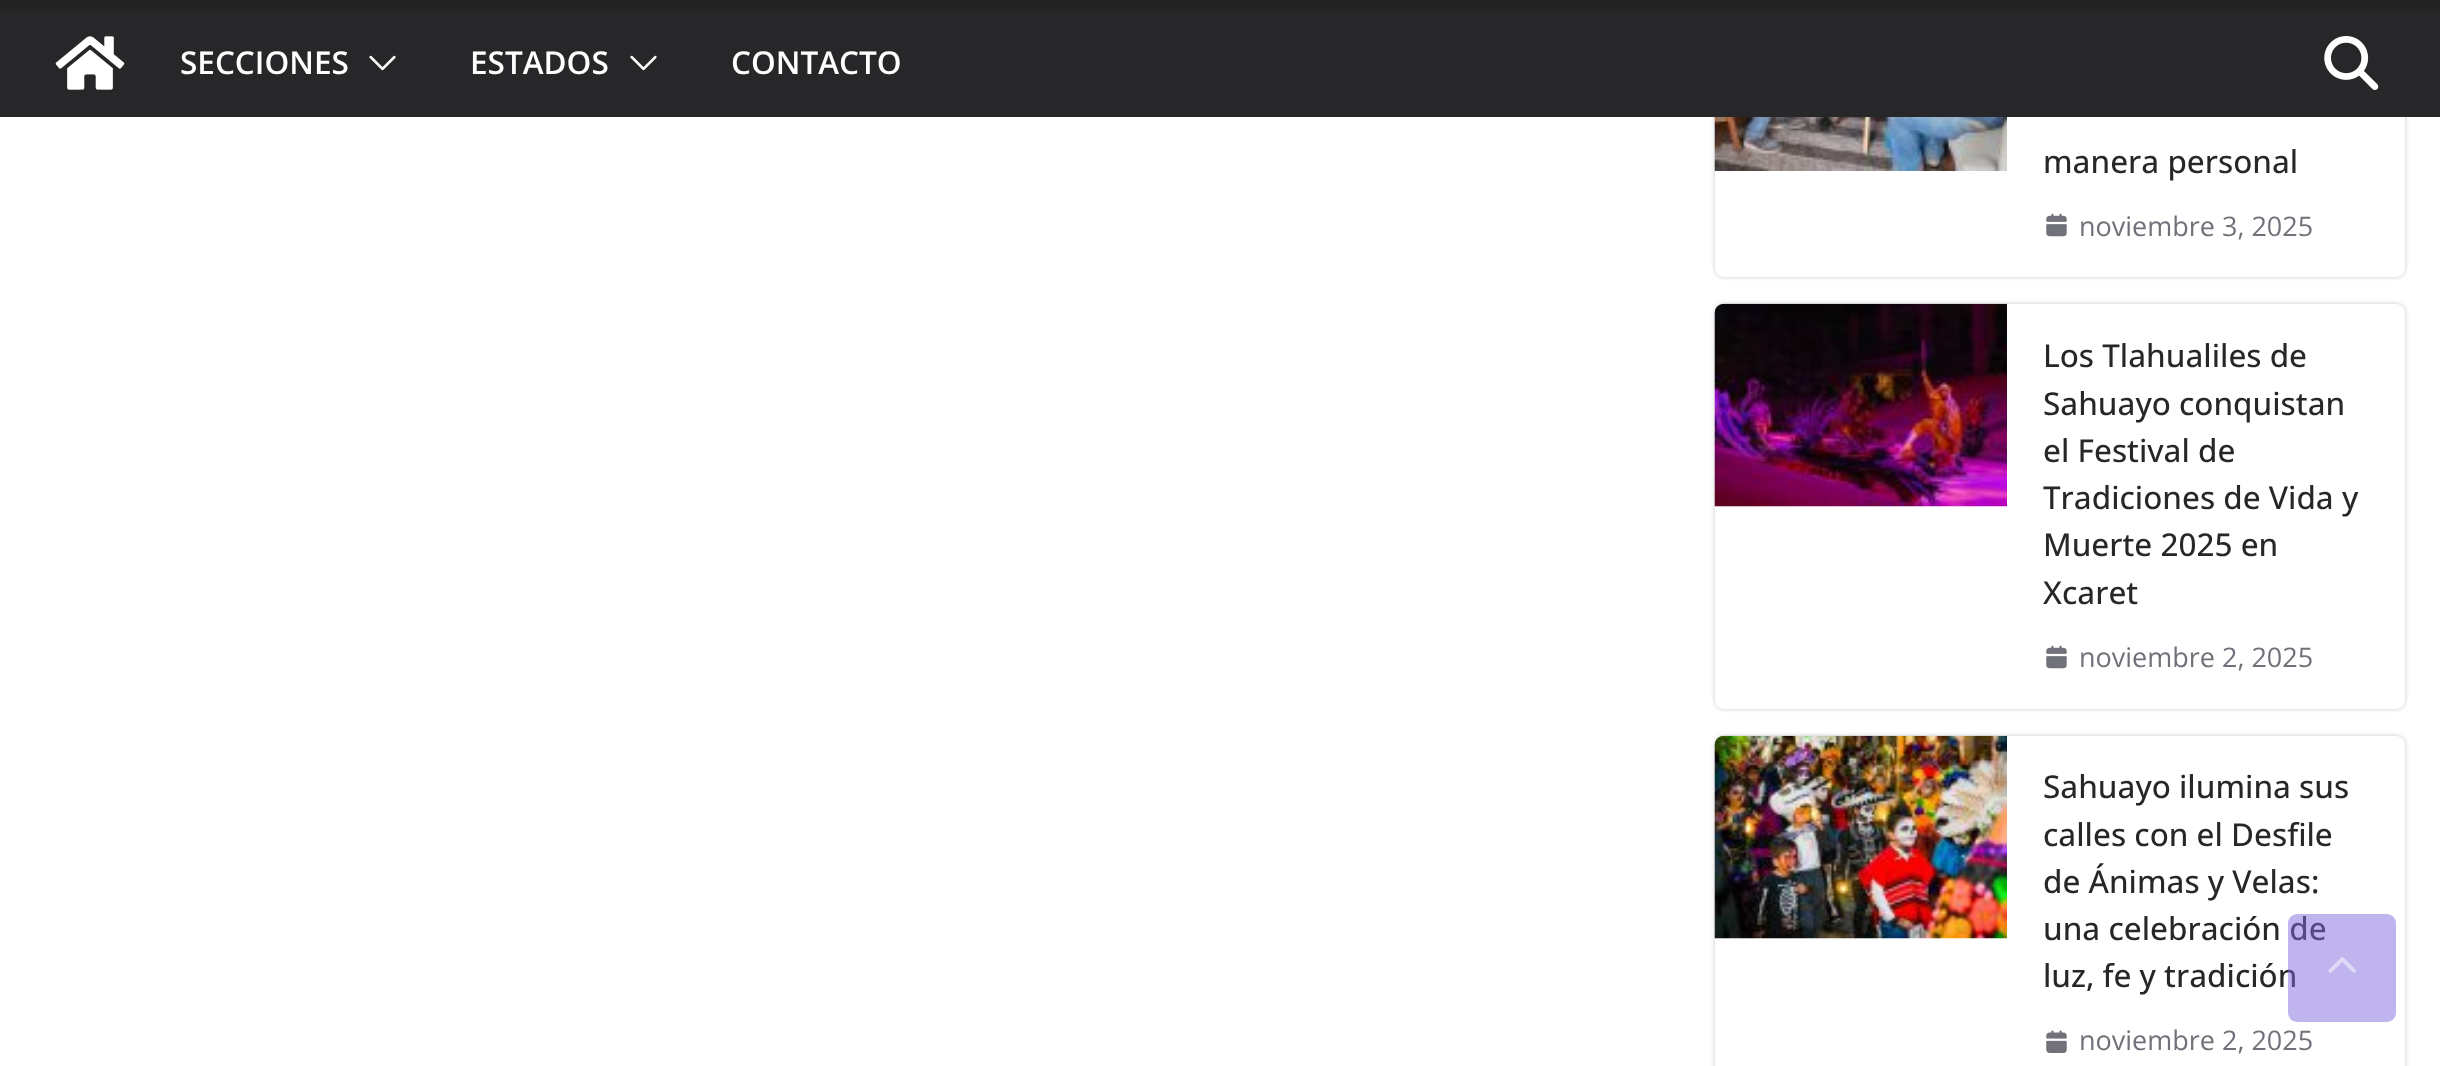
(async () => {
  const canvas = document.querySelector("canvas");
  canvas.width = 2440;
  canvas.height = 1066;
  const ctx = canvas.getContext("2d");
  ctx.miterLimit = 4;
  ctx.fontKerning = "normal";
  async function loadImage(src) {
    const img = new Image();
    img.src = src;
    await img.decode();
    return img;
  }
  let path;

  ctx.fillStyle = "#ffffff";
  ctx.fillRect(0, 0, 2440, 1066);
  ctx.save();
  path = new Path2D("M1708 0H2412V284H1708ZM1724-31H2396C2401-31 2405-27 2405-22V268C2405 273 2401 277 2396 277H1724C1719 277 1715 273 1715 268V-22C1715-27 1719-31 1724-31Z");
  ctx.clip(path, "evenodd");
  ctx.fillStyle = "rgba(0, 0, 0, 0.24)";
  ctx.filter = "blur(2px)";
  ctx.beginPath();
  ctx.roundRect(1715, -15, 690, 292, 9);
  ctx.fill();
  ctx.filter = "none";
  ctx.restore();
  ctx.fillStyle = "#27272a";
  ctx.fillRect(0, 9, 2440, 108);
  ctx.fillStyle = "#232323";
  ctx.fillRect(0, 0, 2440, 9);
  ctx.drawImage(await loadImage("img/1.png"), 55, 36, 70, 54);
  ctx.drawImage(await loadImage("img/2.png"), 369, 55, 27, 16);
  ctx.drawImage(await loadImage("img/2.png"), 630, 55, 27, 16);
  ctx.drawImage(await loadImage("img/3.png"), 2324, 36, 55, 54);
  ctx.drawImage(await loadImage("img/4.png"), 1714, 117, 293, 54);
  ctx.drawImage(await loadImage("img/5.png"), 2046, 213, 21, 24);
  ctx.save();
  path = new Path2D("M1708 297H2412V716H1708ZM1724 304H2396C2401 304 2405 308 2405 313V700C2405 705 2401 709 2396 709H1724C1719 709 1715 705 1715 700V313C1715 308 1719 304 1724 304Z");
  ctx.clip(path, "evenodd");
  ctx.fillStyle = "rgba(0, 0, 0, 0.24)";
  ctx.filter = "blur(2px)";
  ctx.beginPath();
  ctx.roundRect(1715, 304, 690, 405, 9);
  ctx.fill();
  ctx.filter = "none";
  ctx.restore();
  ctx.drawImage(await loadImage("img/6.png"), 1714, 303, 293, 204);
  ctx.drawImage(await loadImage("img/5.png"), 2046, 645, 21, 24);
  ctx.save();
  path = new Path2D("M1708 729H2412V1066H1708ZM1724 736H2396C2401 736 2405 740 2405 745V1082C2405 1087 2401 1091 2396 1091H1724C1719 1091 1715 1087 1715 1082V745C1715 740 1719 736 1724 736Z");
  ctx.clip(path, "evenodd");
  ctx.fillStyle = "rgba(0, 0, 0, 0.24)";
  ctx.filter = "blur(2px)";
  ctx.beginPath();
  ctx.roundRect(1715, 736, 690, 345, 9);
  ctx.fill();
  ctx.filter = "none";
  ctx.restore();
  ctx.drawImage(await loadImage("img/7.png"), 1714, 735, 293, 204);
  ctx.drawImage(await loadImage("img/8.png"), 2046, 1030, 21, 23);
  ctx.font = "600 31.5px Open Sans";
  ctx.fillStyle = "#ffffff";
  for (const [text, x, y] of [
    ["SECCIONES", 180, 74],
    ["ESTADOS", 470, 74],
    ["CONTACTO", 731, 74],
  ]) {
    ctx.fillText(text, x, y);
  }
  ctx.font = "500 31.5px Open Sans";
  ctx.fillStyle = "#27272a";
  ctx.fillText("manera personal", 2043, 173);
  ctx.font = "27px Open Sans";
  ctx.fillStyle = "#71717a";
  ctx.fillText("noviembre 3, 2025", 2079, 236);
  ctx.font = "500 31.5px Open Sans";
  ctx.fillStyle = "#27272a";
  for (const [text, x, y] of [
    ["Los Tlahualiles de", 2043, 367],
    ["Sahuayo conquistan", 2043, 415],
    ["el Festival de", 2043, 462],
    ["Tradiciones de Vida y", 2043, 509],
    ["Muerte 2025 en", 2043, 556],
    ["Xcaret", 2043, 604],
  ]) {
    ctx.fillText(text, x, y);
  }
  ctx.font = "27px Open Sans";
  ctx.fillStyle = "#71717a";
  ctx.fillText("noviembre 2, 2025", 2079, 667);
  ctx.font = "500 31.5px Open Sans";
  ctx.fillStyle = "#27272a";
  for (const [text, x, y] of [
    ["Sahuayo ilumina sus", 2043, 798],
    ["calles con el Desfile", 2043, 846],
    ["de Ánimas y Velas:", 2043, 893],
    ["una celebración de", 2043, 940],
    ["luz, fe y tradición", 2043, 987],
  ]) {
    ctx.fillText(text, x, y);
  }
  ctx.font = "27px Open Sans";
  ctx.fillStyle = "#71717a";
  ctx.fillText("noviembre 2, 2025", 2079, 1050);
  ctx.fillStyle = "rgba(130, 105, 223, 0.5)";
  ctx.beginPath();
  ctx.roundRect(2288, 914, 108, 108, 9);
  ctx.fill();
  ctx.drawImage(await loadImage("img/9.png"), 2328, 957, 28, 16);
})();
